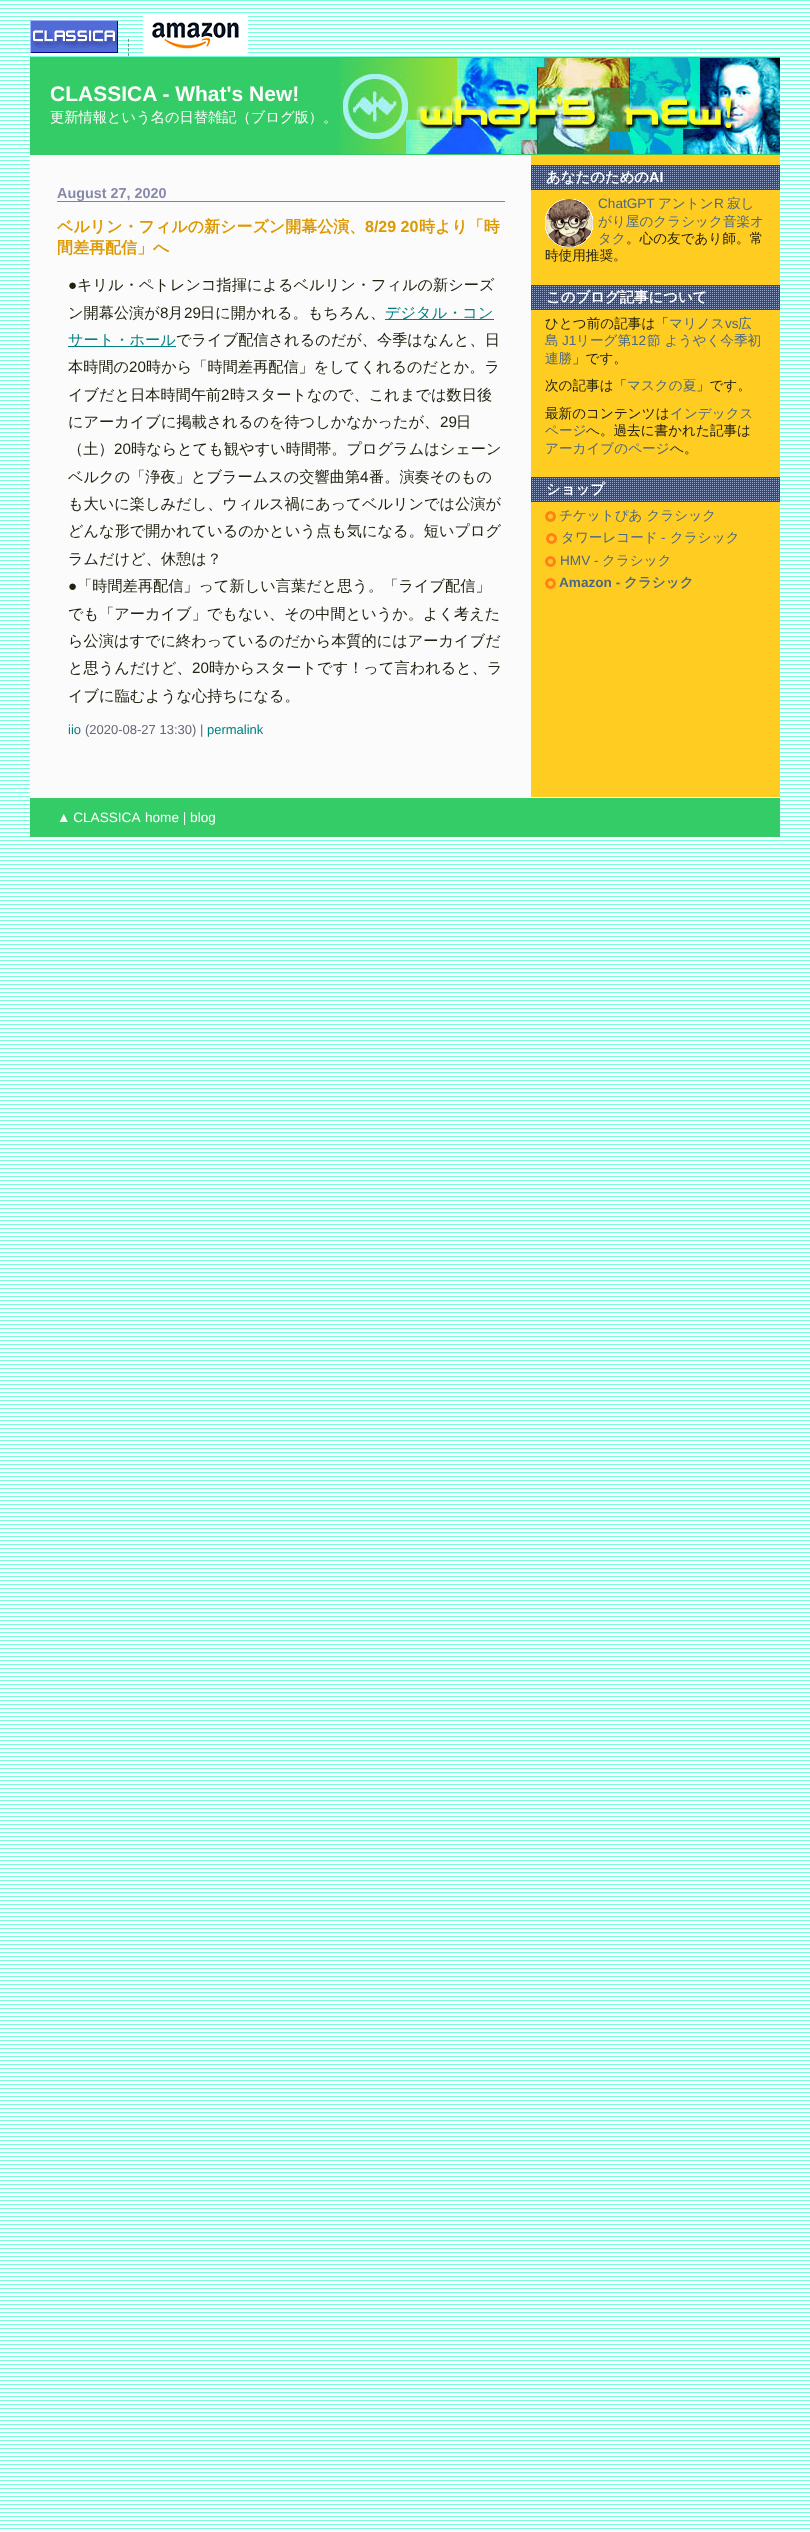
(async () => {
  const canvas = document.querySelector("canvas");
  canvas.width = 810;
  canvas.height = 2532;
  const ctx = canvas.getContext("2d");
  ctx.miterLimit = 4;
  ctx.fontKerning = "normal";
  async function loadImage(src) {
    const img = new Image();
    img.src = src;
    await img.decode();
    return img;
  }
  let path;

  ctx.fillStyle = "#ffffff";
  ctx.fillRect(0, 0, 810, 2532);
  ctx.drawImage(await loadImage("img/1.png"), 0, 0, 810, 2529);
  ctx.drawImage(await loadImage("img/2.png"), 30, 20, 88, 33);
  path = new Path2D("M128.5 39V56");
  ctx.strokeStyle = "#669999";
  ctx.setLineDash([3, 1.67]);
  ctx.stroke(path);
  ctx.drawImage(await loadImage("img/3.png"), 143, 16, 105, 37);
  ctx.fillStyle = "#33cc66";
  ctx.fillRect(30, 57, 750, 98);
  ctx.drawImage(await loadImage("img/4.png"), 340, 58, 440, 96);
  for (const [x, y, w, h, color] of [
    [30, 155, 750, 643, "#fbfbfc"],
    [531, 155, 249, 642, "#ffcc22"],
    [57, 201, 448, 1, "#cc6666"],
    [385, 319, 109, 1, "#008080"],
    [68, 346, 108, 1, "#008080"],
    [531, 165, 249, 25, "#bc0082"],
  ]) {
    ctx.fillStyle = color;
    ctx.fillRect(x, y, w, h);
  }
  ctx.drawImage(await loadImage("img/5.png"), 532, 166, 247, 23);
  ctx.fillStyle = "#ffffff";
  ctx.fillRect(530, 165, 1, 25);
  ctx.drawImage(await loadImage("img/6.png"), 545, 199, 48, 48);
  ctx.fillStyle = "#bc0082";
  ctx.fillRect(531, 285, 249, 25);
  ctx.drawImage(await loadImage("img/5.png"), 532, 286, 247, 23);
  ctx.fillStyle = "#ffffff";
  ctx.fillRect(530, 285, 1, 25);
  ctx.fillStyle = "#bc0082";
  ctx.fillRect(531, 477, 249, 25);
  ctx.drawImage(await loadImage("img/5.png"), 532, 478, 247, 23);
  ctx.fillStyle = "#ffffff";
  ctx.fillRect(530, 477, 1, 25);
  ctx.drawImage(await loadImage("img/7.png"), 545, 511, 11, 11);
  ctx.drawImage(await loadImage("img/7.png"), 546, 533, 11, 11);
  ctx.drawImage(await loadImage("img/7.png"), 545, 556, 11, 11);
  ctx.drawImage(await loadImage("img/7.png"), 545, 578, 11, 11);
  ctx.fillStyle = "#33cc66";
  ctx.fillRect(30, 798, 750, 39);
  ctx.font = "bold 21px Liberation Sans";
  ctx.fillStyle = "#fcfcfc";
  ctx.fillText("CLASSICA - What's New!", 50, 101);
  ctx.font = "500 14.25px WenQuanYi Zen Hei";
  ctx.fillText("更新情報という名の日替雑記（ブログ版）。", 50, 122);
  ctx.font = "bold 14.4px Liberation Sans";
  ctx.fillStyle = "#8888aa";
  ctx.fillText("August 27, 2020", 57, 198);
  ctx.font = "bold 16px WenQuanYi Zen Hei";
  ctx.fillStyle = "#dd9900";
  ctx.fillText("ベルリン・フィルの新シーズン開幕公演、", 57, 232);
  ctx.font = "bold 16px Liberation Sans";
  ctx.fillText("8/29 20", 365, 232);
  ctx.font = "bold 16px WenQuanYi Zen Hei";
  ctx.fillText("時より「時", 419, 232);
  ctx.fillText("間差再配信」へ", 57, 253);
  ctx.font = "15.2px Liberation Sans";
  ctx.fillStyle = "#222211";
  ctx.fillText("●", 68, 290);
  ctx.font = "500 15.2px WenQuanYi Zen Hei";
  ctx.fillText("キリル・ペトレンコ指揮によるベルリン・フィルの新シーズ", 77, 290);
  ctx.fillText("ン開幕公演が", 68, 318);
  ctx.font = "15.2px Liberation Sans";
  ctx.fillText("8", 160, 318);
  ctx.font = "500 15.2px WenQuanYi Zen Hei";
  ctx.fillText("月", 168, 318);
  ctx.font = "15.2px Liberation Sans";
  ctx.fillText("29", 184, 318);
  ctx.font = "500 15.2px WenQuanYi Zen Hei";
  ctx.fillText("日に開かれる。もちろん、", 200, 318);
  ctx.fillStyle = "#008080";
  ctx.fillText("デジタル・コン", 385, 318);
  ctx.fillText("サート・ホール", 68, 345);
  ctx.fillStyle = "#222211";
  ctx.fillText("でライブ配信されるのだが、今季はなんと、日", 176, 345);
  ctx.fillText("本時間の", 68, 372);
  ctx.font = "15.2px Liberation Sans";
  ctx.fillText("20", 129, 372);
  ctx.font = "500 15.2px WenQuanYi Zen Hei";
  ctx.fillText("時から「時間差再配信」をしてくれるのだとか。ラ", 146, 372);
  ctx.fillText("イブだと日本時間午前", 68, 400);
  ctx.font = "15.2px Liberation Sans";
  ctx.fillText("2", 221, 400);
  ctx.font = "500 15.2px WenQuanYi Zen Hei";
  ctx.fillText("時スタートなので、これまでは数日後", 230, 400);
  ctx.fillText("にアーカイブに掲載されるのを待つしかなかったが、", 68, 427);
  ctx.font = "15.2px Liberation Sans";
  ctx.fillText("29", 440, 427);
  ctx.font = "500 15.2px WenQuanYi Zen Hei";
  ctx.fillText("日", 456, 427);
  ctx.fillText("（土）", 68, 454);
  ctx.font = "15.2px Liberation Sans";
  ctx.fillText("20", 114, 454);
  ctx.font = "500 15.2px WenQuanYi Zen Hei";
  ctx.fillText("時ならとても観やすい時間帯。プログラムはシェーン", 131, 454);
  ctx.fillText("ベルクの「浄夜」とブラームスの交響曲第", 68, 482);
  ctx.font = "15.2px Liberation Sans";
  ctx.fillText("4", 360, 482);
  ctx.font = "500 15.2px WenQuanYi Zen Hei";
  for (const [text, x, y] of [
    ["番。演奏そのもの", 369, 482],
    ["も大いに楽しみだし、ウィルス禍にあってベルリンでは公演が", 68, 509],
    ["どんな形で開かれているのかという点も気になる。短いプログ", 68, 536],
    ["ラムだけど、休憩は？", 68, 564],
  ]) {
    ctx.fillText(text, x, y);
  }
  ctx.font = "15.2px Liberation Sans";
  ctx.fillText("●", 68, 591);
  ctx.font = "500 15.2px WenQuanYi Zen Hei";
  for (const [text, x, y] of [
    ["「時間差再配信」って新しい言葉だと思う。「ライブ配信」", 77, 591],
    ["でも「アーカイブ」でもない、その中間というか。よく考えた", 68, 619],
    ["ら公演はすでに終わっているのだから本質的にはアーカイブだ", 68, 646],
    ["と思うんだけど、", 68, 673],
  ]) {
    ctx.fillText(text, x, y);
  }
  ctx.font = "15.2px Liberation Sans";
  ctx.fillText("20", 192, 673);
  ctx.font = "500 15.2px WenQuanYi Zen Hei";
  ctx.fillText("時からスタートです！って言われると、ラ", 209, 673);
  ctx.fillText("イブに臨むような心持ちになる。", 68, 701);
  ctx.font = "13px Liberation Sans";
  ctx.fillStyle = "#008080";
  ctx.fillText("iio", 68, 734);
  ctx.fillStyle = "#666677";
  ctx.fillText("(2020-08-27 13:30) |", 85, 734);
  ctx.fillStyle = "#008080";
  ctx.fillText("permalink", 207, 734);
  ctx.font = "bold 14.4px WenQuanYi Zen Hei";
  ctx.fillStyle = "#fcfcfc";
  ctx.fillText("あなたのための", 546, 182);
  ctx.font = "bold 14.4px Liberation Sans";
  ctx.fillText("AI", 649, 182);
  ctx.font = "13.6px Liberation Sans";
  ctx.fillStyle = "#4c6885";
  ctx.fillText("ChatGPT", 598, 208);
  ctx.font = "500 13.6px WenQuanYi Zen Hei";
  ctx.fillText("アントン", 658, 208);
  ctx.font = "13.6px Liberation Sans";
  ctx.fillText("R", 714, 208);
  ctx.font = "500 13.6px WenQuanYi Zen Hei";
  for (const [text, x, y] of [
    ["寂し", 727, 208],
    ["がり屋のクラシック音楽オ", 598, 226],
    ["タク", 598, 243],
  ]) {
    ctx.fillText(text, x, y);
  }
  ctx.fillStyle = "#222211";
  ctx.fillText("。心の友であり師。常", 626, 243);
  ctx.fillText("時使用推奨。", 545, 260);
  ctx.font = "bold 14.4px WenQuanYi Zen Hei";
  ctx.fillStyle = "#fcfcfc";
  ctx.fillText("このブログ記事について", 546, 302);
  ctx.font = "500 13.6px WenQuanYi Zen Hei";
  ctx.fillStyle = "#222211";
  ctx.fillText("ひとつ前の記事は「", 545, 328);
  ctx.fillStyle = "#4c6885";
  ctx.fillText("マリノス", 669, 328);
  ctx.font = "13.6px Liberation Sans";
  ctx.fillText("vs", 725, 328);
  ctx.font = "500 13.6px WenQuanYi Zen Hei";
  ctx.fillText("広", 738, 328);
  ctx.fillText("島", 545, 345);
  ctx.font = "13.6px Liberation Sans";
  ctx.fillText("J1", 562, 345);
  ctx.font = "500 13.6px WenQuanYi Zen Hei";
  ctx.fillText("リーグ第", 576, 345);
  ctx.font = "13.6px Liberation Sans";
  ctx.fillText("12", 631, 345);
  ctx.font = "500 13.6px WenQuanYi Zen Hei";
  ctx.fillText("節 ようやく今季初", 647, 345);
  ctx.fillText("連勝", 545, 363);
  ctx.fillStyle = "#222211";
  ctx.fillText("」です。", 572, 363);
  ctx.fillText("次の記事は「", 545, 390);
  ctx.fillStyle = "#4c6885";
  ctx.fillText("マスクの夏", 627, 390);
  ctx.fillStyle = "#222211";
  ctx.fillText("」です。", 696, 390);
  ctx.fillText("最新のコンテンツは", 545, 418);
  ctx.fillStyle = "#4c6885";
  ctx.fillText("インデックス", 670, 418);
  ctx.fillText("ページ", 545, 435);
  ctx.fillStyle = "#222211";
  ctx.fillText("へ。過去に書かれた記事は", 586, 435);
  ctx.fillStyle = "#4c6885";
  ctx.fillText("アーカイブのページ", 545, 453);
  ctx.fillStyle = "#222211";
  ctx.fillText("へ。", 670, 453);
  ctx.font = "bold 14.4px WenQuanYi Zen Hei";
  ctx.fillStyle = "#fcfcfc";
  ctx.fillText("ショップ", 546, 494);
  ctx.font = "500 13.6px WenQuanYi Zen Hei";
  ctx.fillStyle = "#4c6885";
  ctx.fillText("チケットぴあ クラシック", 559, 520);
  ctx.fillText("タワーレコード", 561, 542);
  ctx.font = "13.6px Liberation Sans";
  ctx.fillText("-", 661, 542);
  ctx.font = "500 13.6px WenQuanYi Zen Hei";
  ctx.fillText("クラシック", 670, 542);
  ctx.font = "13.6px Liberation Sans";
  ctx.fillText("HMV -", 560, 565);
  ctx.font = "500 13.6px WenQuanYi Zen Hei";
  ctx.fillText("クラシック", 602, 565);
  ctx.font = "bold 13.6px Liberation Sans";
  ctx.fillText("Amazon -", 559, 587);
  ctx.font = "bold 13.6px WenQuanYi Zen Hei";
  ctx.fillText("クラシック", 624, 587);
  ctx.wordSpacing = "-1px";
  ctx.font = "13.6px Liberation Sans";
  ctx.fillStyle = "#fcfcfc";
  ctx.fillText("▲ CLASSICA", 57, 822);
  ctx.wordSpacing = "0px";
  ctx.fillText("home | blog", 145, 822);
})();
